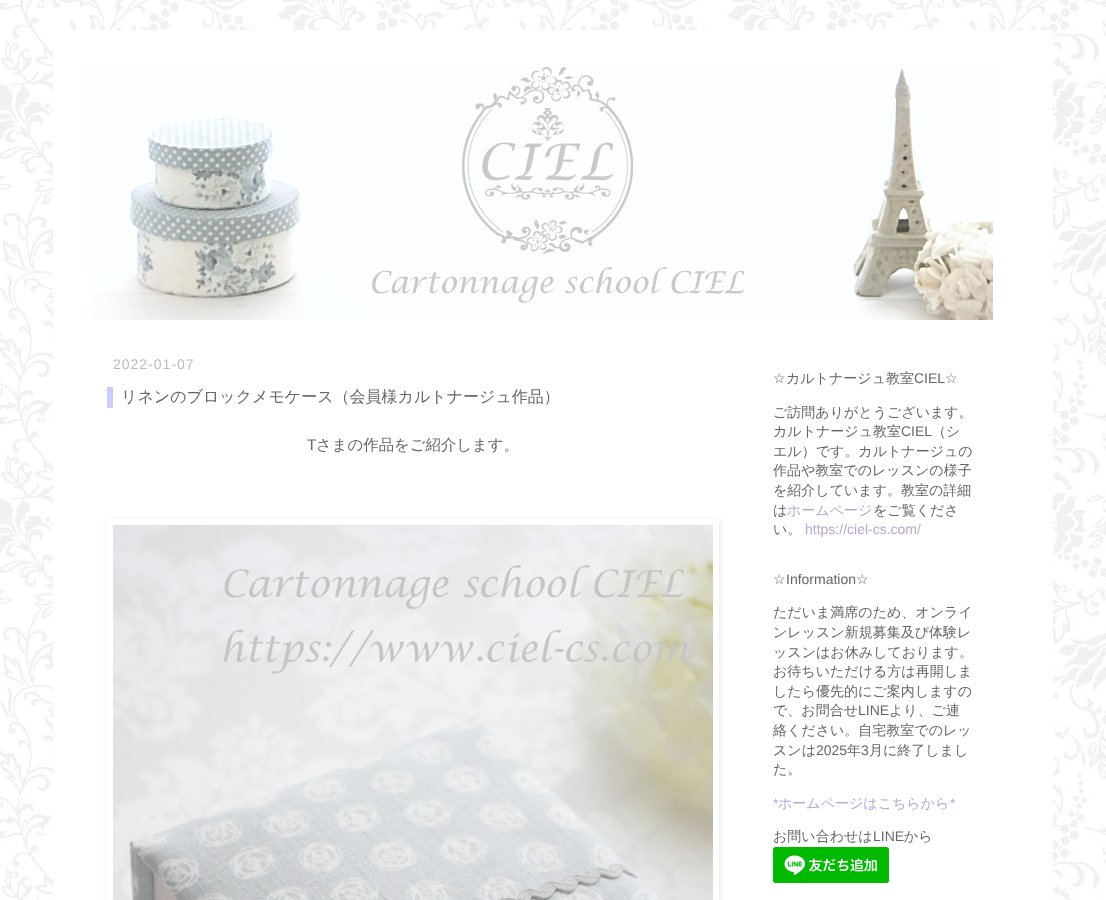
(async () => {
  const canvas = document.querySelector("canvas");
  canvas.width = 1106;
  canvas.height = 900;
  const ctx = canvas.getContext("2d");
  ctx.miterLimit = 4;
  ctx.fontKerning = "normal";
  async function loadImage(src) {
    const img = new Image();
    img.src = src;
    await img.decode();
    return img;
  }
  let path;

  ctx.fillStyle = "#ffffff";
  ctx.fillRect(0, 0, 1106, 900);
  ctx.drawImage(await loadImage("img/1.png"), 0, 400, 1106, 500);
  ctx.drawImage(await loadImage("img/2.png"), 0, 0, 1106, 400);
  ctx.fillRect(53, 30, 1000, 870);
  ctx.drawImage(await loadImage("img/3.png"), 93, 64, 900, 256);
  ctx.fillStyle = "#ccccff";
  ctx.fillRect(107, 387, 6, 21);
  ctx.save();
  path = new Path2D("M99 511H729V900H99ZM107 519H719V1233H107Z");
  ctx.clip(path, "evenodd");
  ctx.fillStyle = "rgba(0, 0, 0, 0.1)";
  ctx.filter = "blur(2.5px)";
  ctx.beginPath();
  ctx.rect(108, 520, 612, 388);
  ctx.fill();
  ctx.filter = "none";
  ctx.restore();
  ctx.drawImage(await loadImage("img/4.png"), 113, 525, 600, 375);
  ctx.drawImage(await loadImage("img/5.png"), 773, 847, 116, 36);
  ctx.letterSpacing = "1px";
  ctx.font = "14px Liberation Sans";
  ctx.fillStyle = "#bbbbbb";
  ctx.fillText("2022-01-07", 113, 369);
  ctx.letterSpacing = "0px";
  ctx.font = "500 16px WenQuanYi Zen Hei";
  ctx.fillStyle = "#666666";
  ctx.fillText("リネンのブロックメモケース（会員様カルトナージュ作品）", 121, 402);
  ctx.font = "15.4px Liberation Sans";
  ctx.fillText("T", 307, 450);
  ctx.font = "500 15.4px WenQuanYi Zen Hei";
  ctx.fillText("さまの作品をご紹介します。", 316, 450);
  ctx.font = "14px DejaVu Sans";
  ctx.fillText("☆", 773, 383);
  ctx.font = "500 14px WenQuanYi Zen Hei";
  ctx.fillText("カルトナージュ教室", 786, 383);
  ctx.font = "14px Liberation Sans";
  ctx.fillText("CIEL", 914, 383);
  ctx.font = "14px DejaVu Sans";
  ctx.fillText("☆", 945, 383);
  ctx.font = "500 14px WenQuanYi Zen Hei";
  ctx.fillText("ご訪問ありがとうございます。", 773, 417);
  ctx.fillText("カルトナージュ教室", 773, 436);
  ctx.font = "14px Liberation Sans";
  ctx.fillText("CIEL", 901, 436);
  ctx.font = "500 14px WenQuanYi Zen Hei";
  for (const [text, x, y] of [
    ["（シ", 932, 436],
    ["エル）です。カルトナージュの", 773, 456],
    ["作品や教室でのレッスンの様子", 773, 475],
    ["を紹介しています。教室の詳細", 773, 495],
    ["は", 773, 515],
  ]) {
    ctx.fillText(text, x, y);
  }
  ctx.fillStyle = "#b4a7d6";
  ctx.fillText("ホームページ", 787, 515);
  ctx.fillStyle = "#666666";
  ctx.fillText("をご覧くださ", 873, 515);
  ctx.fillText("い。", 773, 534);
  ctx.font = "14px Liberation Sans";
  ctx.fillStyle = "#b4a7d6";
  ctx.fillText("https://ciel-cs.com/", 805, 534);
  ctx.font = "14px DejaVu Sans";
  ctx.fillStyle = "#666666";
  ctx.fillText("☆", 773, 584);
  ctx.font = "14px Liberation Sans";
  ctx.fillText("Information", 786, 584);
  ctx.font = "14px DejaVu Sans";
  ctx.fillText("☆", 856, 584);
  ctx.font = "500 14px WenQuanYi Zen Hei";
  for (const [text, x, y] of [
    ["ただいま満席のため、オンライ", 773, 617],
    ["ンレッスン新規募集及び体験レ", 773, 637],
    ["ッスンはお休みしております。", 773, 657],
    ["お待ちいただける方は再開しま", 773, 676],
    ["したら優先的にご案内しますの", 773, 696],
    ["で、お問合せ", 773, 715],
  ]) {
    ctx.fillText(text, x, y);
  }
  ctx.font = "14px Liberation Sans";
  ctx.fillText("LINE", 858, 715);
  ctx.font = "500 14px WenQuanYi Zen Hei";
  for (const [text, x, y] of [
    ["より、ご連", 889, 715],
    ["絡ください。自宅教室でのレッ", 773, 735],
    ["スンは", 773, 755],
  ]) {
    ctx.fillText(text, x, y);
  }
  ctx.font = "14px Liberation Sans";
  ctx.fillText("2025", 816, 755);
  ctx.font = "500 14px WenQuanYi Zen Hei";
  ctx.fillText("年", 847, 755);
  ctx.font = "14px Liberation Sans";
  ctx.fillText("3", 861, 755);
  ctx.font = "500 14px WenQuanYi Zen Hei";
  ctx.fillText("月に終了しまし", 869, 755);
  ctx.fillText("た。", 773, 774);
  ctx.font = "14px Liberation Sans";
  ctx.fillStyle = "#b4a7d6";
  ctx.fillText("*", 773, 808);
  ctx.font = "500 14px WenQuanYi Zen Hei";
  ctx.fillText("ホームページはこちらから", 778, 808);
  ctx.font = "14px Liberation Sans";
  ctx.fillText("*", 950, 808);
  ctx.font = "500 14px WenQuanYi Zen Hei";
  ctx.fillStyle = "#666666";
  ctx.fillText("お問い合わせは", 773, 841);
  ctx.font = "14px Liberation Sans";
  ctx.fillText("LINE", 873, 841);
  ctx.font = "500 14px WenQuanYi Zen Hei";
  ctx.fillText("から", 904, 841);
})();
